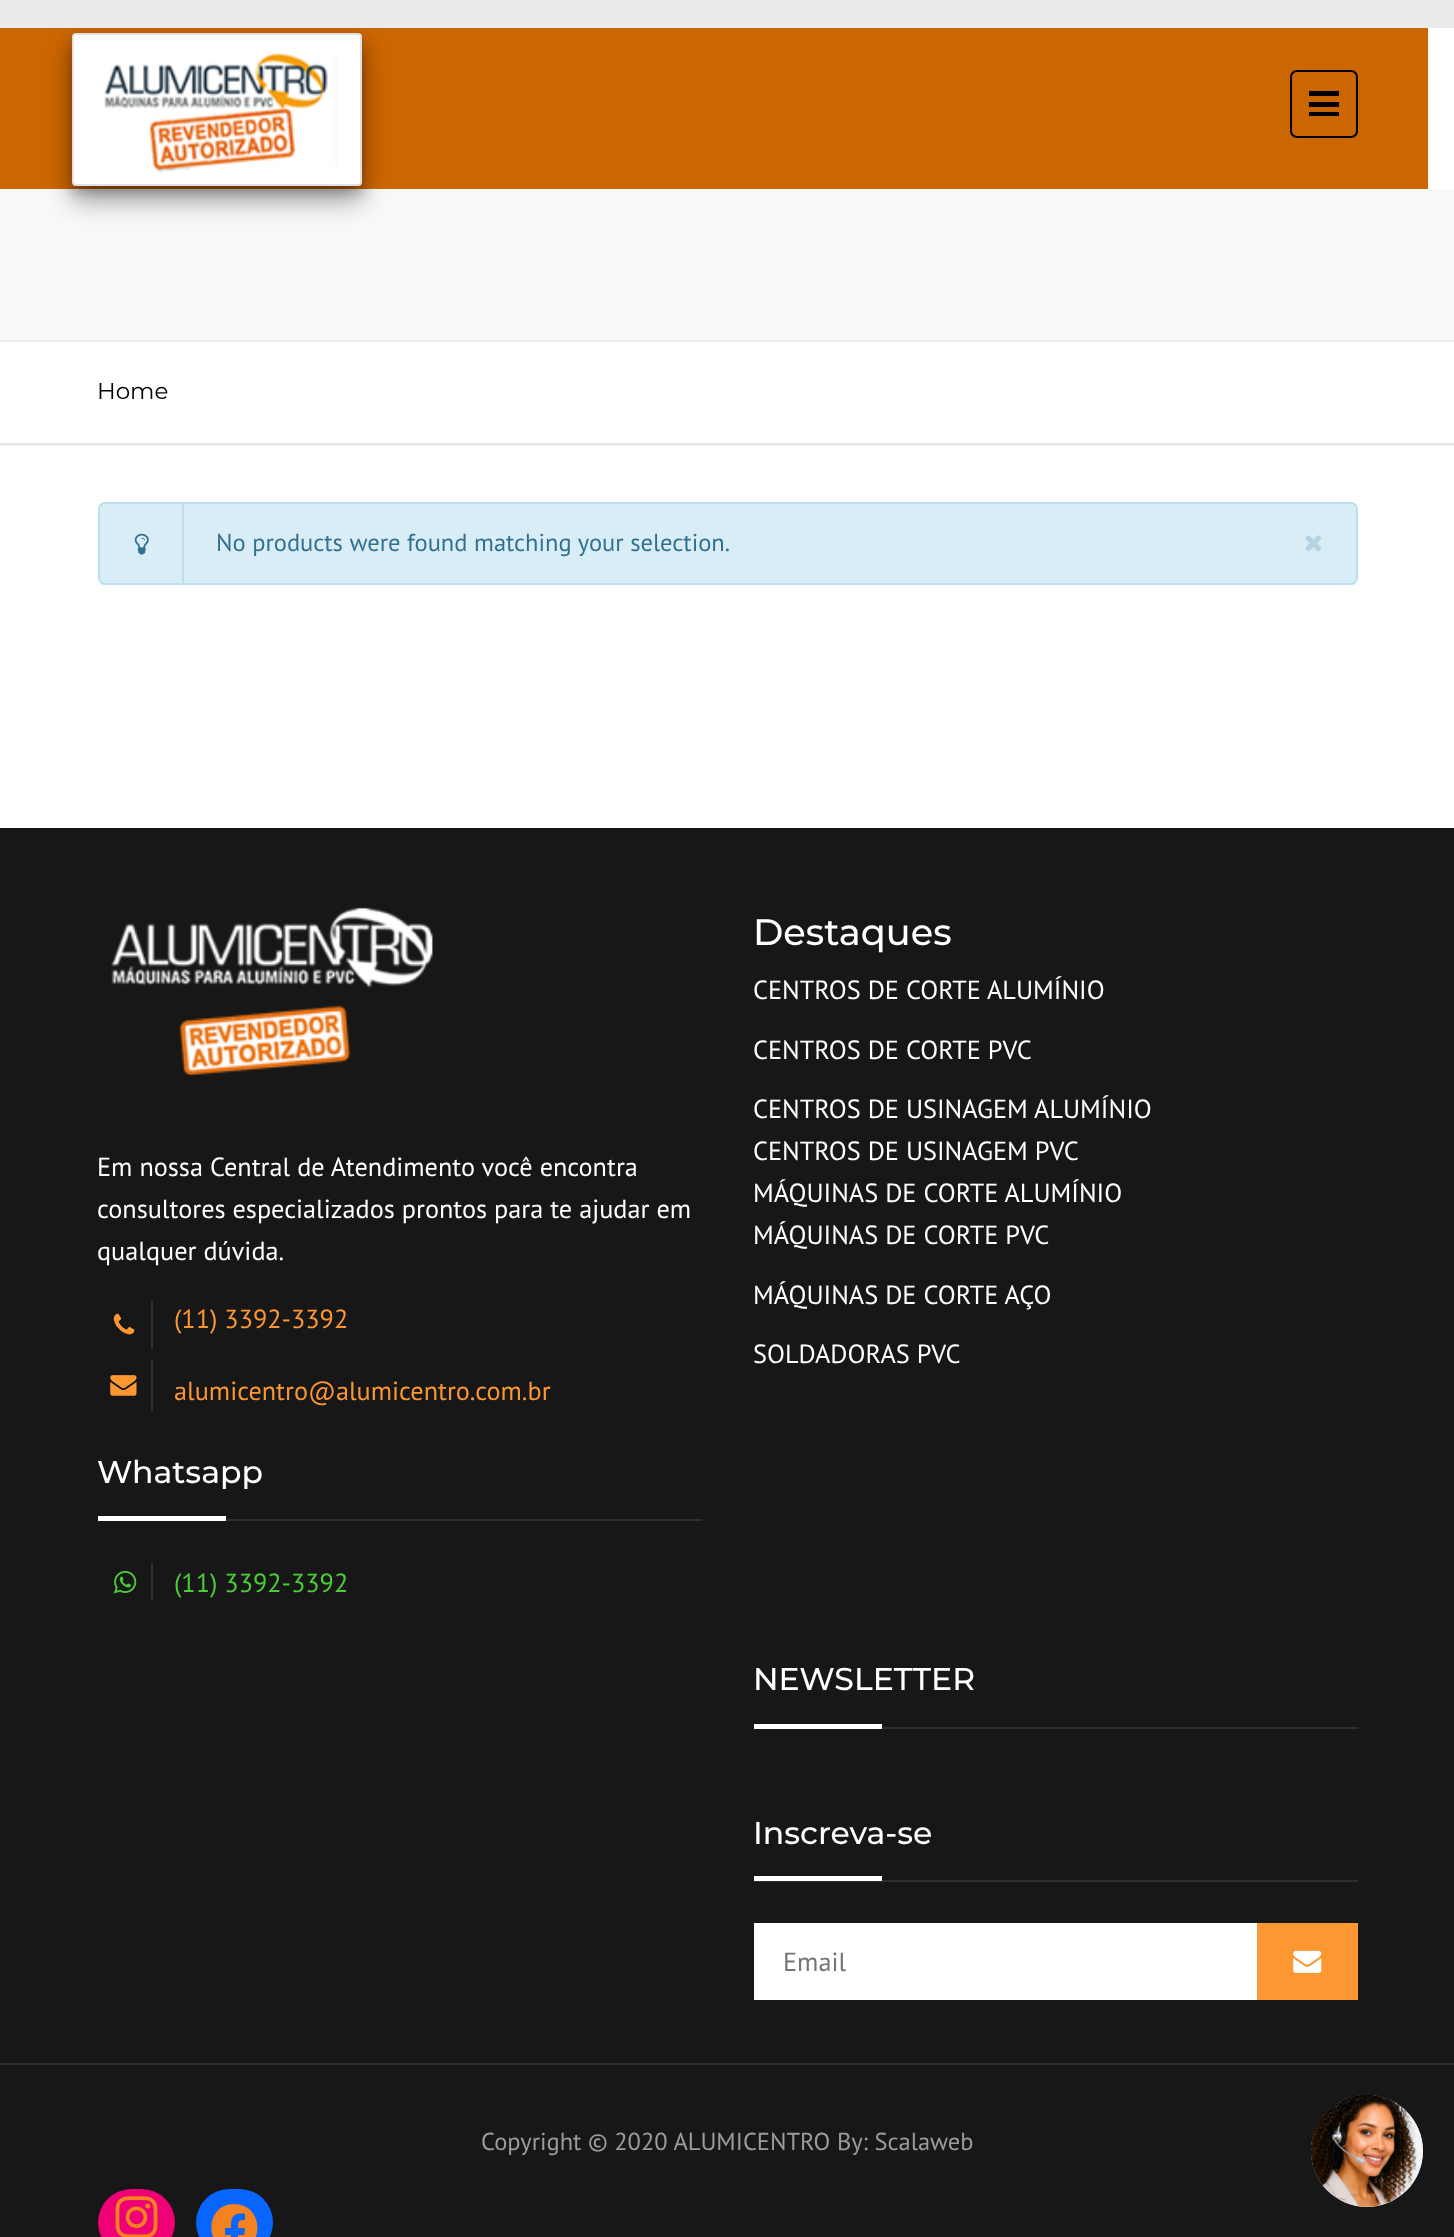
(async () => {
  const canvas = document.querySelector("canvas");
  canvas.width = 1454;
  canvas.height = 2237;
  const ctx = canvas.getContext("2d");
  ctx.miterLimit = 4;
  ctx.fontKerning = "normal";
  async function loadImage(src) {
    const img = new Image();
    img.src = src;
    await img.decode();
    return img;
  }
  let path;

  ctx.fillStyle = "#ffffff";
  ctx.fillRect(0, 0, 1454, 2237);
  ctx.fillStyle = "#cc6600";
  ctx.fillRect(0, 28, 1428, 161);
  ctx.save();
  ctx.beginPath();
  ctx.rect(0, 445, 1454, 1);
  ctx.clip();
  ctx.fillStyle = "rgba(0, 0, 0, 0.14)";
  ctx.filter = "blur(1px)";
  ctx.beginPath();
  ctx.rect(0, 341, 1454, 104);
  ctx.fill();
  ctx.filter = "none";
  ctx.restore();
  ctx.fillStyle = "#f8f9f9";
  ctx.fillRect(0, 189, 1454, 151);
  ctx.fillStyle = "rgba(0, 0, 0, 0.35)";
  ctx.filter = "blur(14px)";
  ctx.beginPath();
  ctx.roundRect(72, 47, 290, 153, 4);
  ctx.fill();
  ctx.filter = "none";
  ctx.fillStyle = "rgba(0, 0, 0, 0.25)";
  ctx.filter = "blur(7px)";
  ctx.beginPath();
  ctx.roundRect(72, 40, 290, 153, 4);
  ctx.fill();
  ctx.filter = "none";
  ctx.fillStyle = "#ebebeb";
  ctx.fillRect(0, 0, 1454, 28);
  ctx.fillStyle = "#ffffff";
  ctx.beginPath();
  ctx.roundRect(73, 34, 288, 151, 3);
  ctx.fill();
  ctx.strokeStyle = "#dee2e6";
  ctx.lineWidth = 2;
  ctx.stroke();
  ctx.drawImage(await loadImage("img/1.png"), 104, 52, 234, 121);
  ctx.beginPath();
  ctx.roundRect(1291, 71, 66, 66, 6);
  ctx.strokeStyle = "#000000";
  ctx.stroke();
  for (const [x, y, w, h, color] of [
    [1309, 91, 30, 5, "#000000"],
    [1309, 102, 30, 5, "#000000"],
    [1309, 112, 30, 4, "#000000"],
    [0, 340, 1454, 2, "#eeeeee"],
    [0, 443, 1454, 2, "#e7e7e7"],
  ]) {
    ctx.fillStyle = color;
    ctx.fillRect(x, y, w, h);
  }
  ctx.fillStyle = "#d9edf7";
  ctx.beginPath();
  ctx.roundRect(99, 503, 1258, 81, 6);
  ctx.fill();
  ctx.strokeStyle = "#bcdff1";
  ctx.stroke();
  ctx.drawImage(await loadImage("img/2.png"), 134, 533, 15, 22);
  ctx.fillStyle = "#bcdff1";
  ctx.fillRect(182, 504, 2, 79);
  ctx.drawImage(await loadImage("img/3.png"), 1305, 535, 17, 17);
  ctx.fillStyle = "#171717";
  ctx.fillRect(0, 828, 1454, 1409);
  ctx.drawImage(await loadImage("img/4.png"), 111, 907, 322, 170);
  ctx.drawImage(await loadImage("img/5.png"), 113, 1313, 22, 22);
  ctx.fillStyle = "#2e2e2e";
  ctx.fillRect(151, 1300, 2, 49);
  ctx.drawImage(await loadImage("img/6.png"), 110, 1375, 27, 21);
  for (const [x, y, w, h, color] of [
    [151, 1360, 2, 51, "#2e2e2e"],
    [226, 1519, 476, 2, "#2e2e2e"],
    [98, 1516, 128, 5, "#ffffff"],
  ]) {
    ctx.fillStyle = color;
    ctx.fillRect(x, y, w, h);
  }
  ctx.drawImage(await loadImage("img/7.png"), 113, 1570, 24, 24);
  for (const [x, y, w, h, color] of [
    [151, 1563, 2, 38, "#2e2e2e"],
    [882, 1727, 476, 2, "#2e2e2e"],
    [754, 1724, 128, 5, "#ffffff"],
    [754, 1880, 604, 2, "#2e2e2e"],
    [754, 1876, 128, 5, "#ffffff"],
    [754, 1923, 503, 77, "#ffffff"],
    [1257, 1923, 101, 77, "#fc9732"],
  ]) {
    ctx.fillStyle = color;
    ctx.fillRect(x, y, w, h);
  }
  ctx.drawImage(await loadImage("img/8.png"), 1293, 1950, 29, 23);
  ctx.fillStyle = "#2e2e2e";
  ctx.fillRect(0, 2063, 1454, 2);
  ctx.fillStyle = "#f00075";
  ctx.beginPath();
  ctx.roundRect(98, 2189, 77, 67, 33.5);
  ctx.fill();
  ctx.drawImage(await loadImage("img/9.png"), 115, 2196, 43, 41);
  ctx.fillStyle = "#0866ff";
  ctx.beginPath();
  ctx.roundRect(196, 2189, 77, 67, 33.5);
  ctx.fill();
  ctx.fillStyle = "#f58220";
  path = new Path2D("M234 2204C206 2204 203 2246 231 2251V2235H225V2228H231C231 2217 233 2212 245 2214V2220C238 2220 238 2221 238 2228H245L244 2235H238V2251C266 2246 263 2204 234 2204Z");
  ctx.fill(path);
  ctx.fillStyle = "#ffffff";
  ctx.beginPath();
  ctx.arc(1367, 2151, 56, 0, Math.PI * 2);
  ctx.fill();
  ctx.drawImage(await loadImage("img/10.png"), 1310, 2095, 113, 112);
  ctx.font = "23px Montserrat";
  ctx.fillStyle = "#000000";
  ctx.fillText("Home", 97, 399);
  ctx.font = "24.5px PT Sans";
  ctx.fillStyle = "#31708f";
  ctx.fillText("No products were found matching your selection.", 216, 551);
  ctx.font = "26.25px PT Sans";
  ctx.fillStyle = "#ffffff";
  for (const [text, x, y] of [
    ["Em nossa Central de Atendimento você encontra", 97, 1176],
    ["consultores especializados prontos para te ajudar em", 97, 1218],
    ["qualquer dúvida.", 97, 1260],
  ]) {
    ctx.fillText(text, x, y);
  }
  ctx.fillStyle = "#fc9732";
  ctx.fillText("(11) 3392-3392", 174, 1328);
  ctx.fillText("alumicentro@alumicentro.com.br", 174, 1400);
  ctx.font = "500 31.5px Montserrat";
  ctx.fillStyle = "#ffffff";
  ctx.fillText("Whatsapp", 97, 1483);
  ctx.font = "26.25px PT Sans";
  ctx.fillStyle = "#4acd36";
  ctx.fillText("(11) 3392-3392", 174, 1592);
  ctx.font = "500 36.75px Montserrat";
  ctx.fillStyle = "#ffffff";
  ctx.fillText("Destaques", 753, 945);
  ctx.font = "26.25px PT Sans";
  for (const [text, x, y] of [
    ["CENTROS DE CORTE ALUMÍNIO", 753, 999],
    ["CENTROS DE CORTE PVC", 753, 1059],
    ["CENTROS DE USINAGEM ALUMÍNIO", 753, 1118],
    ["CENTROS DE USINAGEM PVC", 753, 1160],
    ["MÁQUINAS DE CORTE ALUMÍNIO", 753, 1202],
    ["MÁQUINAS DE CORTE PVC", 753, 1244],
    ["MÁQUINAS DE CORTE AÇO", 753, 1304],
    ["SOLDADORAS PVC", 753, 1363],
  ]) {
    ctx.fillText(text, x, y);
  }
  ctx.font = "500 31.5px Montserrat";
  ctx.fillText("NEWSLETTER", 753, 1690);
  ctx.fillText("Inscreva-se", 753, 1844);
  ctx.font = "26.25px PT Sans";
  ctx.fillStyle = "#757575";
  ctx.fillText("Email", 783, 1971);
  ctx.font = "24.5px PT Sans";
  ctx.fillStyle = "#9c9c9c";
  ctx.fillText("Copyright © 2020 ALUMICENTRO By: Scalaweb", 481, 2150);
})();
